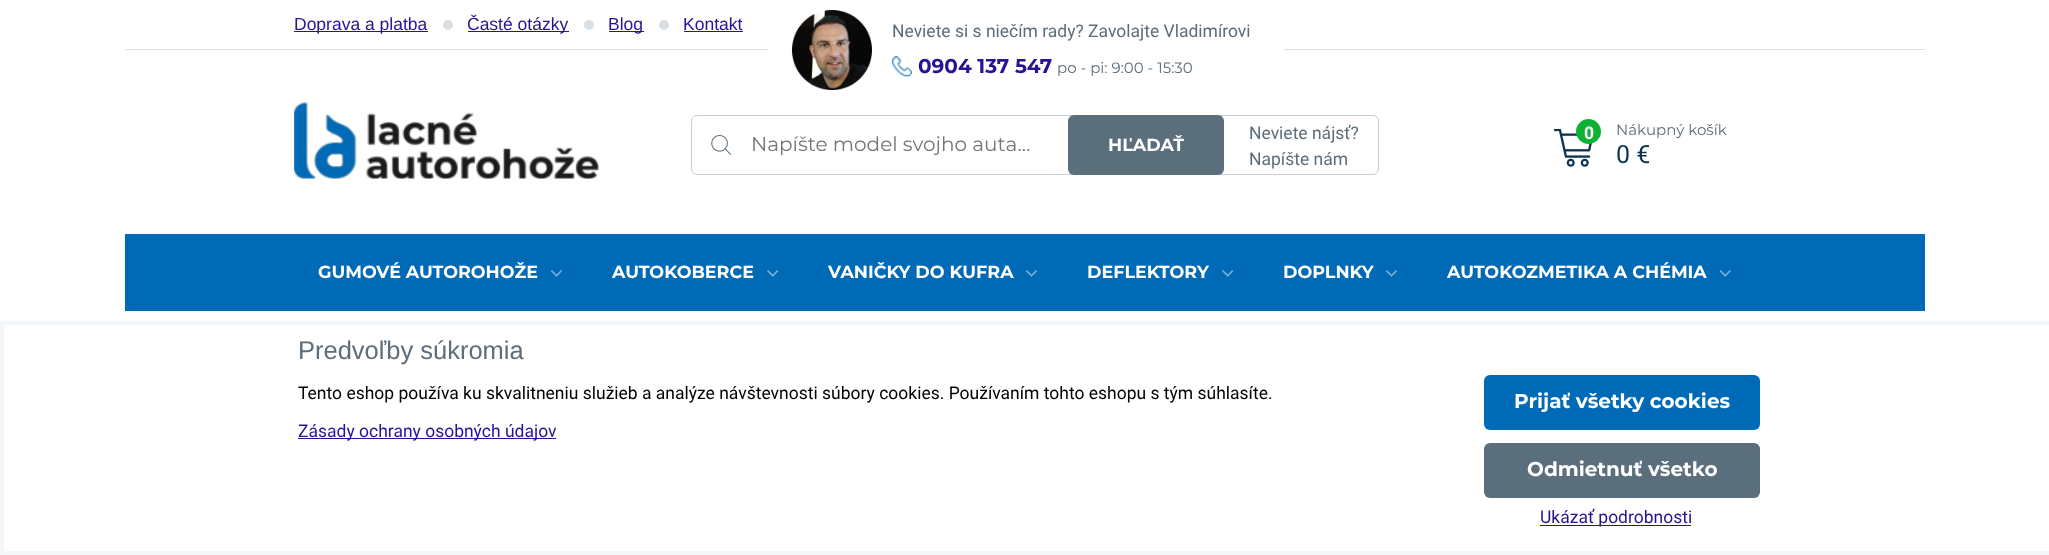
(async () => {
  const canvas = document.querySelector("canvas");
  canvas.width = 2049;
  canvas.height = 555;
  const ctx = canvas.getContext("2d");
  ctx.miterLimit = 4;
  ctx.fontKerning = "normal";
  async function loadImage(src) {
    const img = new Image();
    img.src = src;
    await img.decode();
    return img;
  }

  ctx.fillStyle = "#ffffff";
  ctx.fillRect(0, 0, 2049, 555);
  ctx.fillStyle = "#d9e0e5";
  ctx.fillRect(125, 49, 1800, 1);
  ctx.fillStyle = "#291394";
  ctx.fillRect(294, 31, 134, 1);
  ctx.fillStyle = "#d9e0e5";
  ctx.beginPath();
  ctx.arc(448, 25, 5, 0, Math.PI * 2);
  ctx.fill();
  ctx.fillStyle = "#291394";
  ctx.fillRect(468, 31, 101, 1);
  ctx.fillStyle = "#d9e0e5";
  ctx.beginPath();
  ctx.arc(589, 25, 5, 0, Math.PI * 2);
  ctx.fill();
  ctx.fillStyle = "#291394";
  ctx.fillRect(609, 31, 35, 1);
  ctx.fillStyle = "#d9e0e5";
  ctx.beginPath();
  ctx.arc(664, 25, 5, 0, Math.PI * 2);
  ctx.fill();
  ctx.fillStyle = "#291394";
  ctx.fillRect(684, 31, 59, 1);
  ctx.fillStyle = "#ffffff";
  ctx.fillRect(768, 49, 516, 1);
  ctx.drawImage(await loadImage("img/1.png"), 791, 10, 81, 80);
  ctx.drawImage(await loadImage("img/2.png"), 891, 56, 21, 21);
  ctx.drawImage(await loadImage("img/3.png"), 293, 102, 306, 77);
  ctx.drawImage(await loadImage("img/4.png"), 711, 135, 20, 20);
  ctx.beginPath();
  ctx.roundRect(691.5, 115.5, 687, 59, 5.5);
  ctx.strokeStyle = "#c5d0d8";
  ctx.stroke();
  ctx.fillStyle = "#5a6e7c";
  ctx.beginPath();
  ctx.roundRect(1068, 115, 156, 60, 6);
  ctx.fill();
  ctx.drawImage(await loadImage("img/5.png"), 1554, 129, 38, 38);
  ctx.fillStyle = "#0fb135";
  ctx.beginPath();
  ctx.arc(1588.5, 131.5, 12.5, 0, Math.PI * 2);
  ctx.fill();
  ctx.fillStyle = "#006ab6";
  ctx.fillRect(125, 234, 1800, 77);
  ctx.drawImage(await loadImage("img/6.png"), 551, 270, 11, 7);
  ctx.drawImage(await loadImage("img/7.png"), 767, 270, 12, 7);
  ctx.drawImage(await loadImage("img/6.png"), 1026, 270, 11, 7);
  ctx.drawImage(await loadImage("img/7.png"), 1222, 270, 12, 7);
  ctx.drawImage(await loadImage("img/6.png"), 1386, 270, 11, 7);
  ctx.drawImage(await loadImage("img/8.png"), 1719, 270, 12, 7);
  ctx.strokeStyle = "#f4f7f9";
  ctx.lineWidth = 4;
  ctx.strokeRect(2, 323, 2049, 230);
  ctx.fillStyle = "#291394";
  ctx.fillRect(298, 438, 258, 1);
  ctx.fillStyle = "#006ab6";
  ctx.beginPath();
  ctx.roundRect(1484, 375, 276, 55, 6);
  ctx.fill();
  ctx.fillStyle = "#5a6e7c";
  ctx.beginPath();
  ctx.roundRect(1484, 443, 276, 55, 6);
  ctx.fill();
  ctx.fillStyle = "#291394";
  ctx.fillRect(1540, 525, 151, 1);
  ctx.font = "17.5px Liberation Sans";
  for (const [text, x, y] of [
    ["Doprava a platba", 294, 30],
    ["Časté otázky", 467, 30],
    ["Blog", 608, 30],
    ["Kontakt", 683, 30],
  ]) {
    ctx.fillText(text, x, y);
  }
  ctx.font = "17.5px Roboto";
  ctx.fillStyle = "#5d6d79";
  ctx.fillText("Neviete si s niečím rady? Zavolajte Vladimírovi", 892, 37);
  ctx.font = "100 20px 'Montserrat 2'";
  ctx.fillStyle = "#291394";
  ctx.fillText("0904 137 547", 918, 73);
  ctx.font = "100 15px Montserrat";
  ctx.fillStyle = "#5d6d79";
  ctx.fillText("po - pi: 9:00 - 15:30", 1057, 73);
  ctx.font = "100 20px Montserrat";
  ctx.fillStyle = "#757575";
  ctx.fillText("Napíšte model svojho auta...", 751, 151);
  ctx.font = "100 17.5px 'Montserrat 2'";
  ctx.fillStyle = "#ffffff";
  ctx.fillText("HĽADAŤ", 1108, 151);
  ctx.font = "17.5px Roboto";
  ctx.fillStyle = "#5d6d79";
  ctx.fillText("Neviete nájsť?", 1249, 139);
  ctx.fillText("Napíšte nám", 1249, 165);
  ctx.font = "bold 17.5px Roboto";
  ctx.fillStyle = "#ffffff";
  ctx.fillText("0", 1584, 139);
  ctx.font = "100 15px Montserrat";
  ctx.fillStyle = "#5d6d79";
  ctx.fillText("Nákupný košík", 1616, 135);
  ctx.font = "25px Roboto";
  ctx.fillStyle = "#0a3452";
  ctx.fillText("0 €", 1616, 163);
  ctx.font = "100 17.5px 'Montserrat 2'";
  ctx.fillStyle = "#ffffff";
  for (const [text, x, y] of [
    ["GUMOVÉ AUTOROHOŽE", 318, 278],
    ["AUTOKOBERCE", 612, 278],
    ["VANIČKY DO KUFRA", 828, 278],
    ["DEFLEKTORY", 1087, 278],
    ["DOPLNKY", 1283, 278],
    ["AUTOKOZMETIKA A CHÉMIA", 1447, 278],
  ]) {
    ctx.fillText(text, x, y);
  }
  ctx.font = "25.5px Liberation Sans";
  ctx.fillStyle = "#5d6d79";
  ctx.fillText("Predvoľby súkromia", 298, 359);
  ctx.font = "17.5px Roboto";
  ctx.fillStyle = "#000000";
  ctx.fillText("Tento eshop používa ku skvalitneniu služieb a analýze návštevnosti súbory cookies. Používaním tohto eshopu s tým súhlasíte.", 298, 399);
  ctx.fillStyle = "#291394";
  ctx.fillText("Zásady ochrany osobných údajov", 298, 437);
  ctx.font = "100 20px 'Montserrat 2'";
  ctx.fillStyle = "#ffffff";
  ctx.fillText("Prijať všetky cookies", 1514, 408);
  ctx.fillText("Odmietnuť všetko", 1527, 476);
  ctx.font = "17.5px Roboto";
  ctx.fillStyle = "#291394";
  ctx.fillText("Ukázať podrobnosti", 1540, 523);
})();
